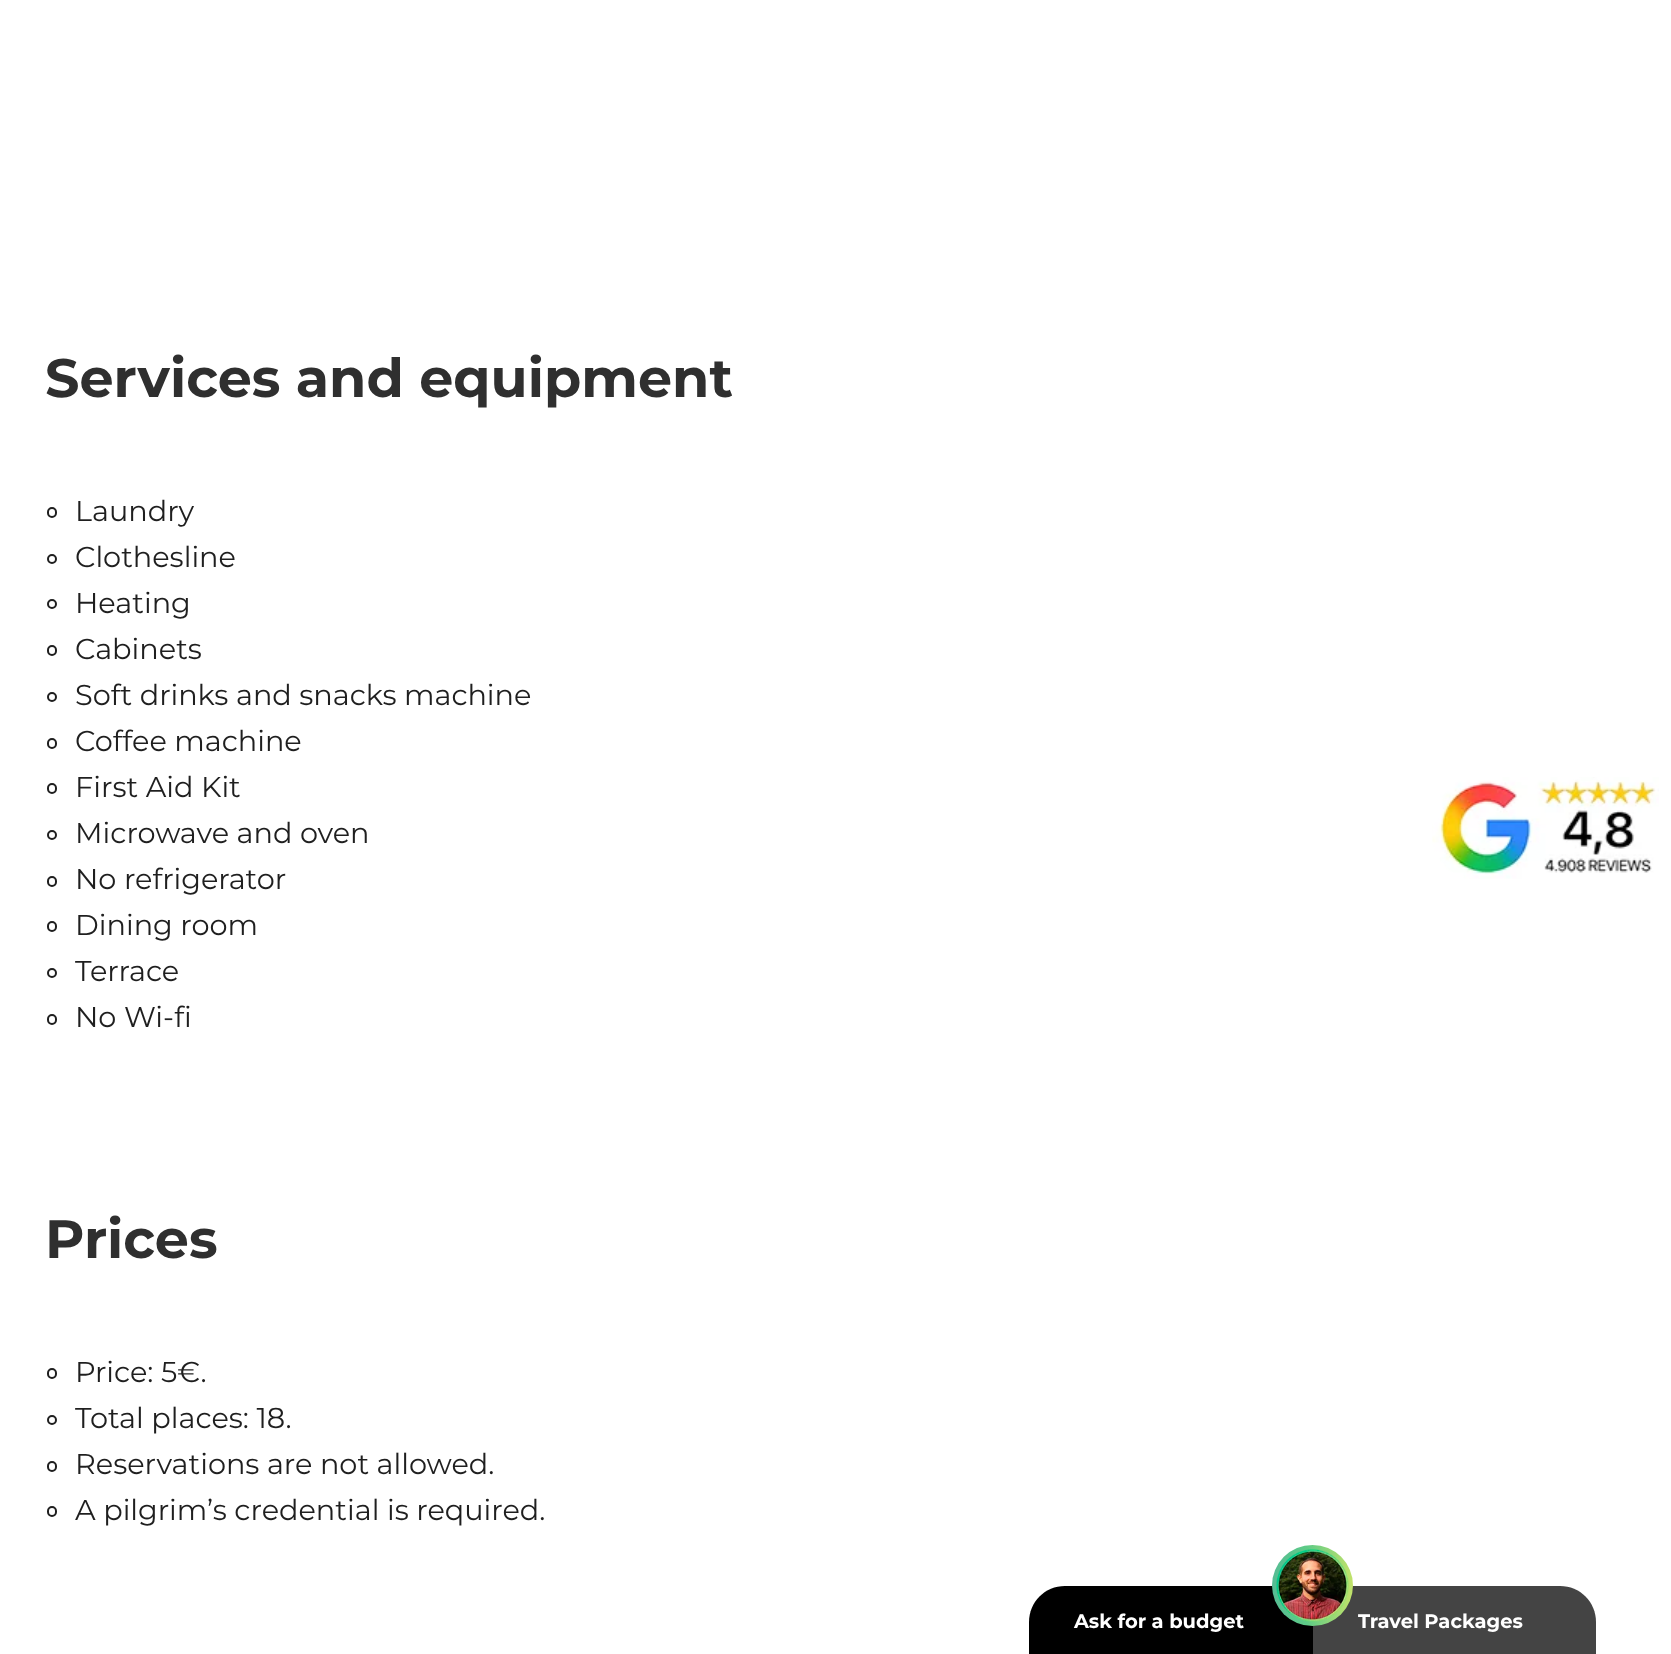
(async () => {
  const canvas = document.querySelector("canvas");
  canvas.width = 1671;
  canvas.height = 1654;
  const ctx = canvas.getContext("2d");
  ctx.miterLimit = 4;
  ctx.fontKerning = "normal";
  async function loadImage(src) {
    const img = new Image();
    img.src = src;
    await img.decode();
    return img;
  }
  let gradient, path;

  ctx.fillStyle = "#ffffff";
  ctx.fillRect(0, 0, 1671, 1654);
  ctx.beginPath();
  ctx.roundRect(48, 508, 8, 9, 4);
  ctx.strokeStyle = "#1f1f1f";
  ctx.lineWidth = 2;
  ctx.stroke();
  ctx.beginPath();
  ctx.arc(52, 559, 4, 0, Math.PI * 2);
  ctx.stroke();
  ctx.beginPath();
  ctx.arc(52, 604, 4, 0, Math.PI * 2);
  ctx.stroke();
  ctx.beginPath();
  ctx.roundRect(48, 646, 8, 9, 4);
  ctx.stroke();
  ctx.beginPath();
  ctx.arc(52, 697, 4, 0, Math.PI * 2);
  ctx.stroke();
  ctx.beginPath();
  ctx.roundRect(48, 739, 8, 9, 4);
  ctx.stroke();
  ctx.beginPath();
  ctx.roundRect(48, 784, 8, 9, 4);
  ctx.stroke();
  ctx.beginPath();
  ctx.arc(52, 835, 4, 0, Math.PI * 2);
  ctx.stroke();
  ctx.beginPath();
  ctx.roundRect(48, 877, 8, 9, 4);
  ctx.stroke();
  ctx.beginPath();
  ctx.roundRect(48, 922, 8, 9, 4);
  ctx.stroke();
  ctx.beginPath();
  ctx.arc(52, 973, 4, 0, Math.PI * 2);
  ctx.stroke();
  ctx.beginPath();
  ctx.roundRect(48, 1015, 8, 9, 4);
  ctx.stroke();
  ctx.beginPath();
  ctx.roundRect(48, 1369, 8, 9, 4);
  ctx.stroke();
  ctx.beginPath();
  ctx.arc(52, 1420, 4, 0, Math.PI * 2);
  ctx.stroke();
  ctx.beginPath();
  ctx.roundRect(48, 1462, 8, 9, 4);
  ctx.stroke();
  ctx.beginPath();
  ctx.roundRect(48, 1507, 8, 9, 4);
  ctx.stroke();
  ctx.drawImage(await loadImage("img/1.png"), 1432, 777, 227, 102);
  ctx.fillStyle = "#000000";
  path = new Path2D("M1065 1586H1313V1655H1029V1622C1029 1602 1045 1586 1065 1586Z");
  ctx.fill(path);
  ctx.fillStyle = "#444444";
  path = new Path2D("M1313 1586H1560C1580 1586 1596 1602 1596 1622V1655H1313Z");
  ctx.fill(path);
  gradient = ctx.createLinearGradient(1272, 1586, 1353, 1586);
  gradient.addColorStop(0, "#56bc94");
  gradient.addColorStop(0.43, "#5ecb87");
  gradient.addColorStop(1, "#c2e26a");
  ctx.fillStyle = gradient;
  ctx.beginPath();
  ctx.arc(1312.5, 1585.5, 40.5, 0, Math.PI * 2);
  ctx.fill();
  ctx.drawImage(await loadImage("img/2.png"), 1276, 1549, 73, 73);
  ctx.font = "bold 54px Montserrat";
  ctx.fillStyle = "#2f2f2f";
  ctx.fillText("Services and equipment", 45, 397);
  ctx.font = "28.75px Montserrat";
  ctx.fillStyle = "#1f1f1f";
  for (const [text, x, y] of [
    ["Laundry", 75, 521],
    ["Clothesline", 75, 567],
    ["Heating", 75, 613],
    ["Cabinets", 75, 659],
    ["Soft drinks and snacks machine", 75, 705],
    ["Coffee machine", 75, 751],
    ["First Aid Kit", 75, 797],
    ["Microwave and oven", 75, 843],
    ["No refrigerator", 75, 889],
    ["Dining room", 75, 935],
    ["Terrace", 75, 981],
    ["No Wi-fi", 75, 1027],
  ]) {
    ctx.fillText(text, x, y);
  }
  ctx.font = "bold 54px Montserrat";
  ctx.fillStyle = "#2f2f2f";
  ctx.fillText("Prices", 45, 1258);
  ctx.font = "28.75px Montserrat";
  ctx.fillStyle = "#1f1f1f";
  for (const [text, x, y] of [
    ["Price: 5€.", 75, 1382],
    ["Total places: 18.", 75, 1428],
    ["Reservations are not allowed.", 75, 1474],
    ["A pilgrim’s credential is required.", 75, 1520],
  ]) {
    ctx.fillText(text, x, y);
  }
  ctx.font = "bold 19.5px Montserrat";
  ctx.fillStyle = "#ffffff";
  ctx.fillText("Ask for a budget", 1074, 1628);
  ctx.fillText("Travel Packages", 1358, 1628);
})();
